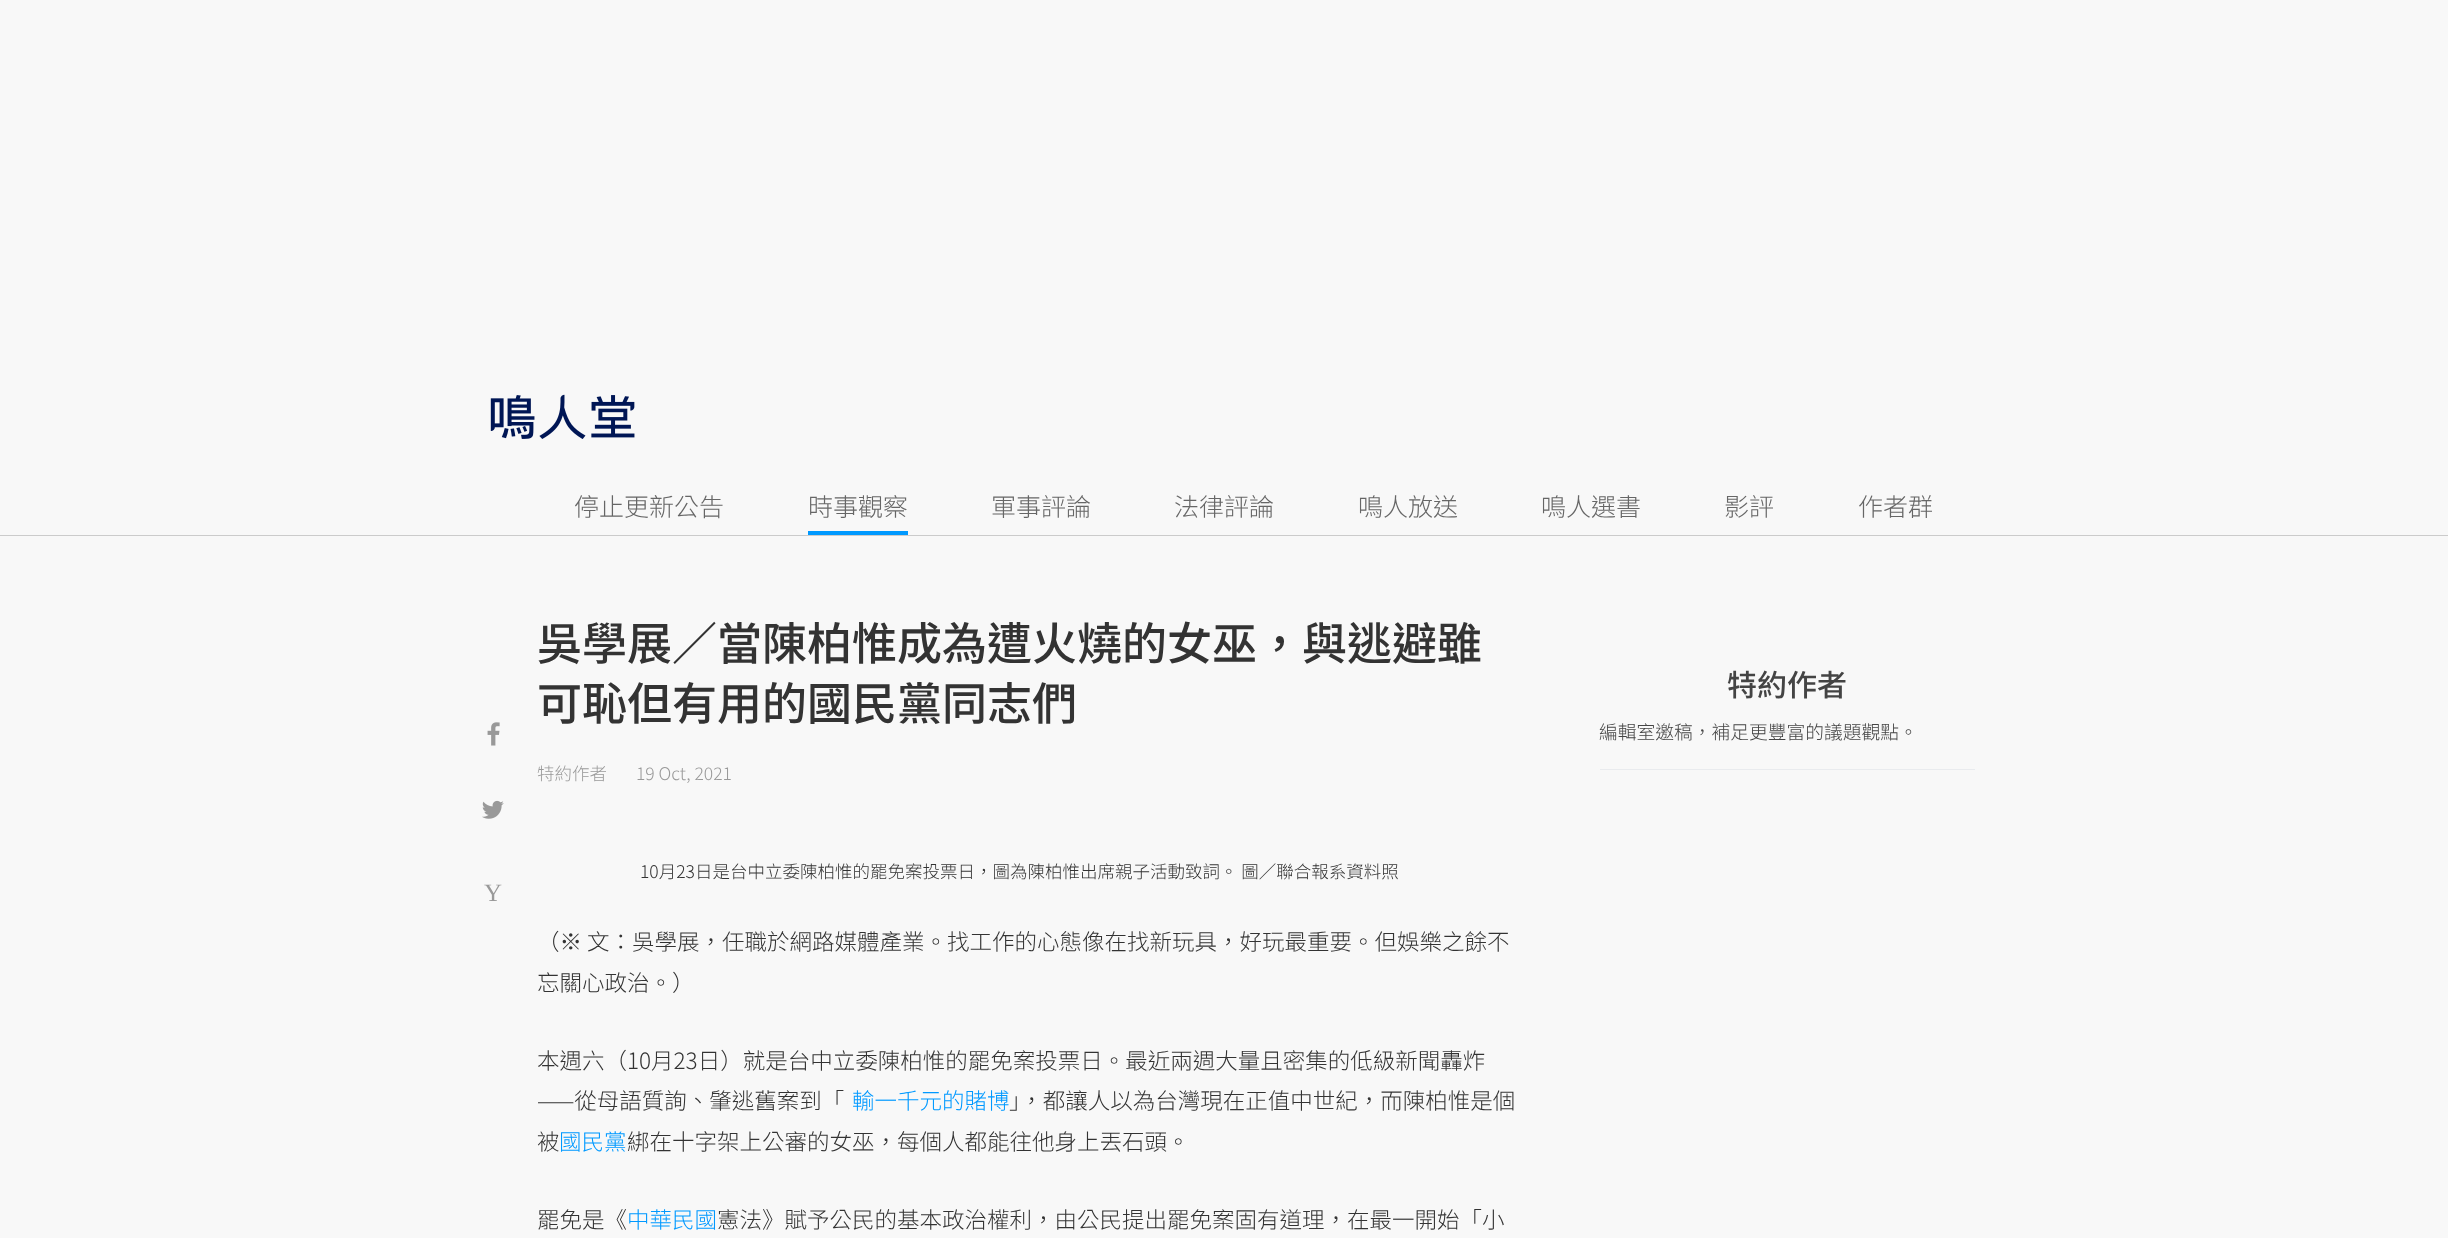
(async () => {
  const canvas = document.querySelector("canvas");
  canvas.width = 2448;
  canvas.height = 1238;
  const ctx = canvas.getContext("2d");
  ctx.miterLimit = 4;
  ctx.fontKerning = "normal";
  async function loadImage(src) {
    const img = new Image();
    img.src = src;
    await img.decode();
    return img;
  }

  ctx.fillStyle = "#f8f8f8";
  ctx.fillRect(0, 0, 2448, 1238);
  ctx.drawImage(await loadImage("img/1.png"), 490, 394, 145, 45);
  ctx.fillStyle = "#cbcbcb";
  ctx.fillRect(0, 535, 2448, 1);
  ctx.fillStyle = "#0099ff";
  ctx.fillRect(808, 531, 100, 4);
  ctx.drawImage(await loadImage("img/2.png"), 487, 722, 13, 24);
  ctx.drawImage(await loadImage("img/3.png"), 482, 800, 22, 19);
  ctx.fillStyle = "#e9ebee";
  ctx.fillRect(1600, 769, 375, 1);
  ctx.font = "300 25px Noto Sans TC";
  ctx.fillStyle = "#666666";
  for (const [text, x, y] of [
    ["停止更新公告", 574, 516],
    ["時事觀察", 808, 516],
    ["軍事評論", 991, 516],
    ["法律評論", 1174, 516],
    ["鳴人放送", 1358, 516],
    ["鳴人選書", 1541, 516],
    ["影評", 1724, 516],
    ["作者群", 1858, 516],
  ]) {
    ctx.fillText(text, x, y);
  }
  ctx.font = "500 45px Noto Sans TC";
  ctx.fillStyle = "#333333";
  ctx.fillText("吳學展／當陳柏惟成為遭火燒的女巫，與逃避雖", 537, 660);
  ctx.fillText("可恥但有用的國民黨同志們", 537, 720);
  ctx.font = "300 17.5px Noto Sans TC";
  ctx.fillStyle = "#999999";
  ctx.fillText("特約作者", 537, 780);
  ctx.fillText("19 Oct, 2021", 636, 780);
  ctx.fillStyle = "#333333";
  ctx.fillText("10月23日是台中立委陳柏惟的罷免案投票日，圖為陳柏惟出席親子活動致詞。 圖／聯合報系資料照", 640, 878);
  ctx.font = "25px Liberation Serif";
  ctx.fillStyle = "#999999";
  ctx.fillText("Y", 484, 901);
  ctx.font = "300 22.5px Noto Sans TC";
  ctx.fillStyle = "#333333";
  for (const [text, x, y] of [
    ["（※ 文：吳學展，任職於網路媒體產業。找工作的心態像在找新玩具，好玩最重要。但娛樂之餘不", 537, 950],
    ["忘關心政治。）", 537, 991],
    ["本週六（10月23日）就是台中立委陳柏惟的罷免案投票日。最近兩週大量且密集的低級新聞轟炸", 537, 1069],
    ["——從母語質詢、肇逃舊案到「", 537, 1109],
  ]) {
    ctx.fillText(text, x, y);
  }
  ctx.fillStyle = "#0099ff";
  ctx.fillText("輸一千元的賭博", 852, 1109);
  ctx.fillStyle = "#333333";
  ctx.fillText("」，都讓人以為台灣現在正值中世紀，而陳柏惟是個", 1009, 1109);
  ctx.fillText("被", 537, 1150);
  ctx.fillStyle = "#0099ff";
  ctx.fillText("國民黨", 559, 1150);
  ctx.fillStyle = "#333333";
  ctx.fillText("綁在十字架上公審的女巫，每個人都能往他身上丟石頭。", 627, 1150);
  ctx.fillText("罷免是《", 537, 1228);
  ctx.fillStyle = "#0099ff";
  ctx.fillText("中華民國", 627, 1228);
  ctx.fillStyle = "#333333";
  ctx.fillText("憲法》賦予公民的基本政治權利，由公民提出罷免案固有道理，在最一開始「小", 717, 1228);
  ctx.font = "500 30px Noto Sans TC";
  ctx.fillStyle = "#444444";
  ctx.fillText("特約作者", 1727, 696);
  ctx.font = "300 18.75px Noto Sans TC";
  ctx.fillText("編輯室邀稿，補足更豐富的議題觀點。", 1599, 739);
})();
